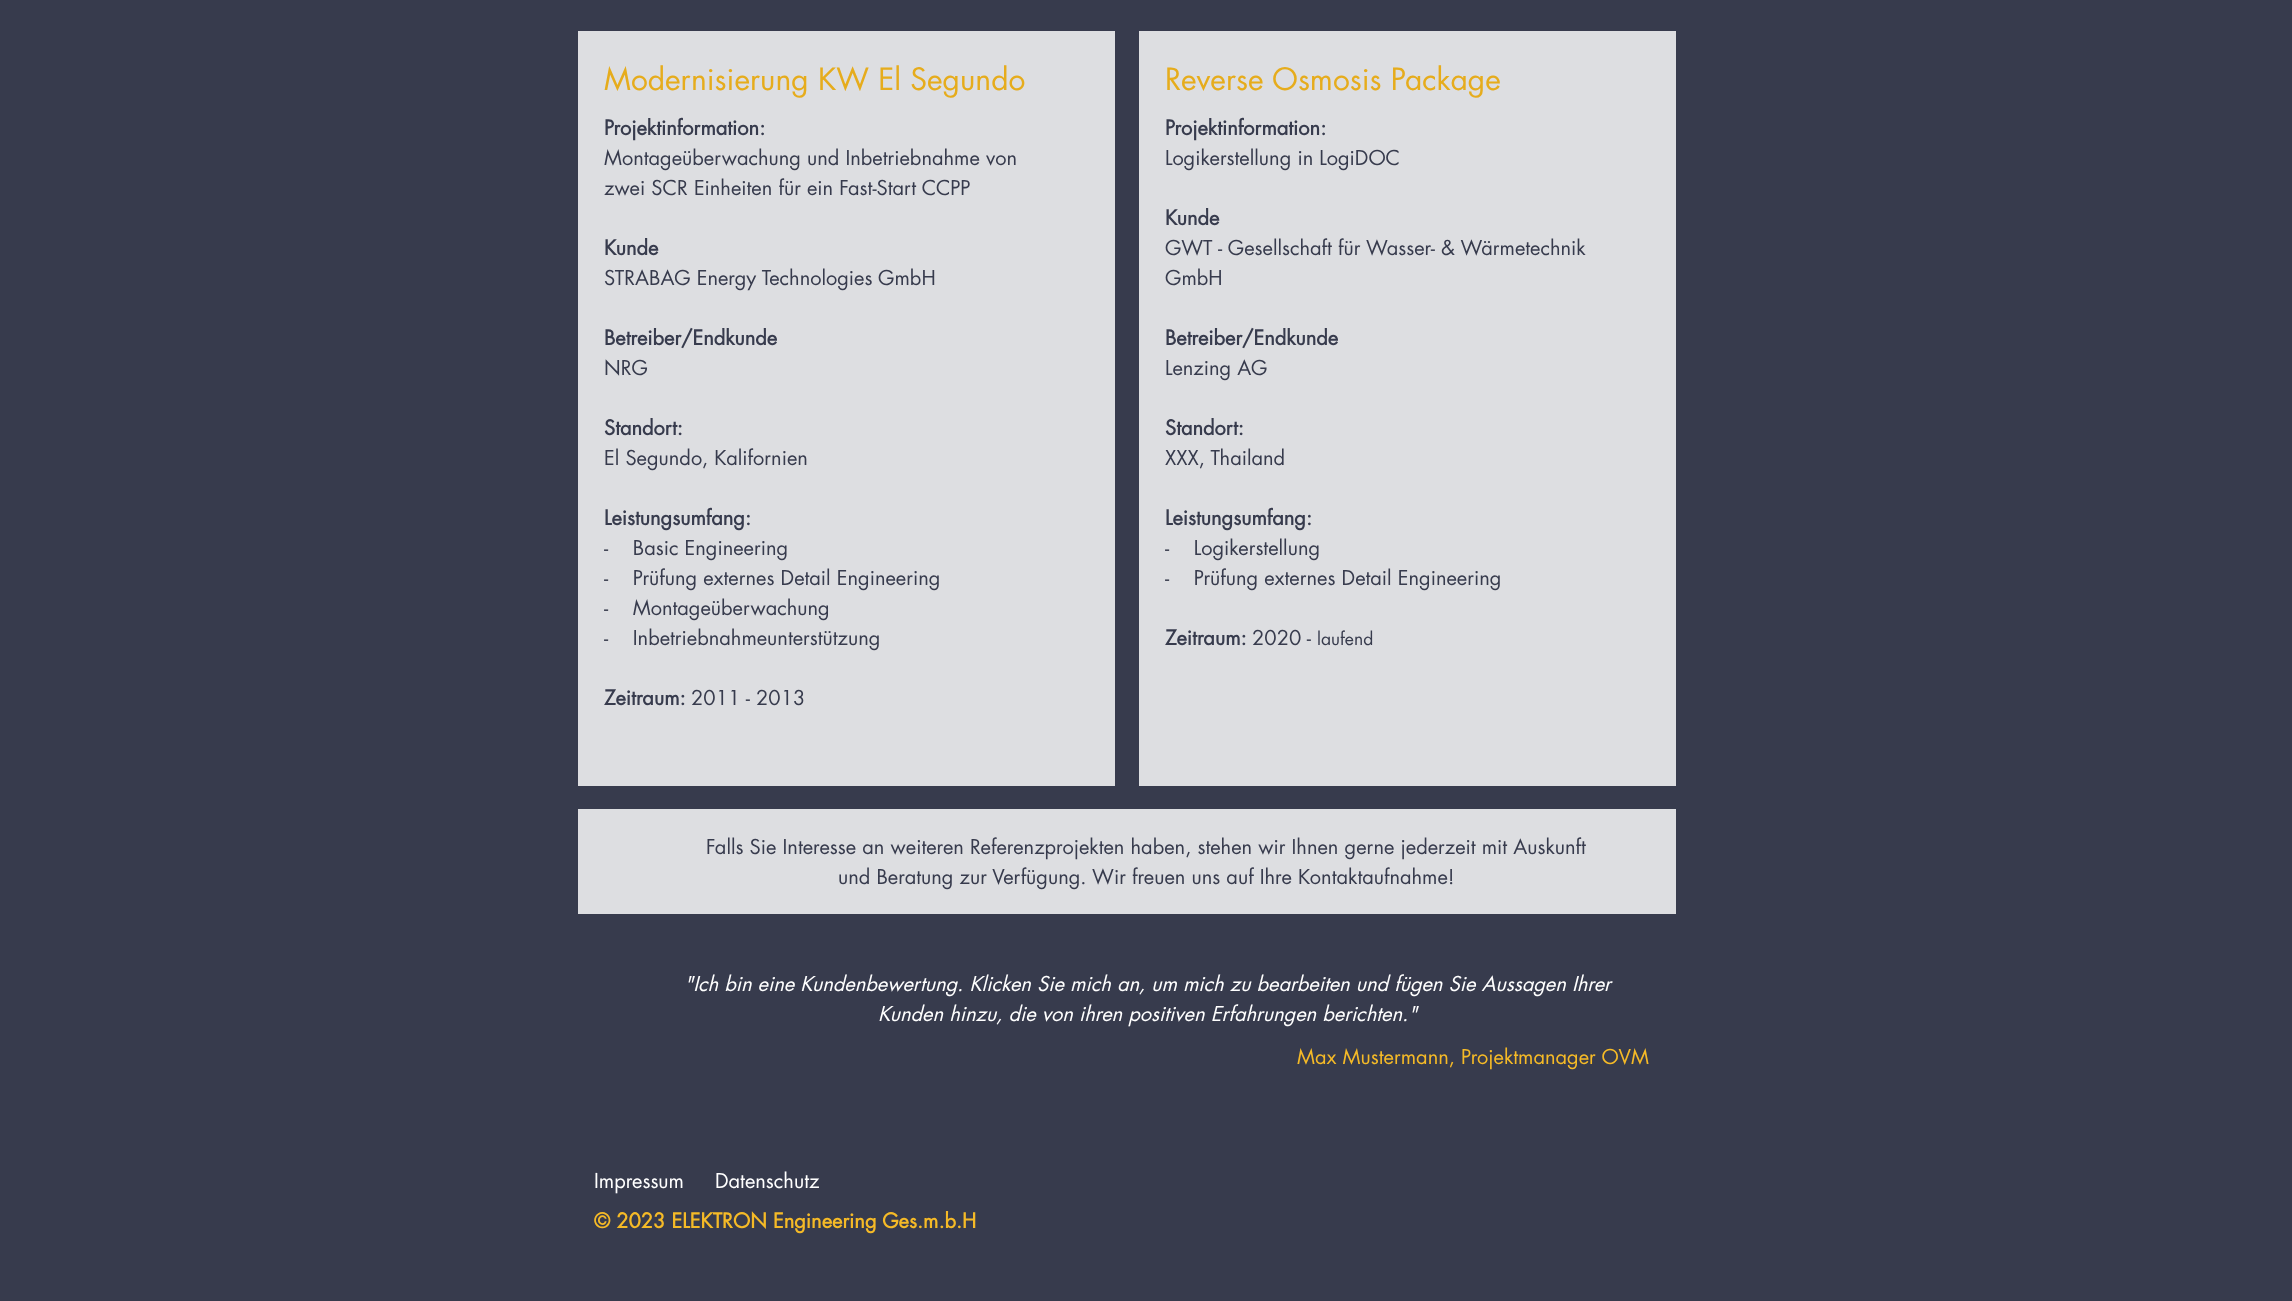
(async () => {
  const canvas = document.querySelector("canvas");
  canvas.width = 2292;
  canvas.height = 1301;
  const ctx = canvas.getContext("2d");
  ctx.miterLimit = 4;
  ctx.fontKerning = "normal";

  ctx.fillStyle = "#373b4d";
  ctx.fillRect(0, 0, 2292, 1301);
  for (const [x, y, w, h, color] of [
    [578, 31, 537, 755, "#dddee1"],
    [1139, 31, 537, 755, "#dddee1"],
    [578, 809, 1098, 105, "#dddee1"],
  ]) {
    ctx.fillStyle = color;
    ctx.fillRect(x, y, w, h);
  }
  ctx.font = "30px futura";
  ctx.fillStyle = "#e6ac1c";
  ctx.fillText("Modernisierung KW El Segundo", 604, 90);
  ctx.font = "bold 20px futura";
  ctx.fillStyle = "#373b4d";
  ctx.fillText("Projektinformation:", 604, 135);
  ctx.font = "20px futura";
  ctx.fillText("Montageüberwachung und Inbetriebnahme von", 604, 165);
  ctx.fillText("zwei SCR Einheiten für ein Fast-Start CCPP", 604, 195);
  ctx.font = "bold 20px futura";
  ctx.fillText("Kunde", 604, 255);
  ctx.font = "20px futura";
  ctx.fillText("STRABAG Energy Technologies GmbH", 604, 285);
  ctx.font = "bold 20px futura";
  ctx.fillText("Betreiber/Endkunde", 604, 345);
  ctx.font = "20px futura";
  ctx.fillText("NRG", 604, 375);
  ctx.font = "bold 20px futura";
  ctx.fillText("Standort:", 604, 435);
  ctx.font = "20px futura";
  ctx.fillText("El Segundo, Kalifornien", 604, 465);
  ctx.font = "bold 20px futura";
  ctx.fillText("Leistungsumfang:", 604, 525);
  ctx.font = "20px futura";
  for (const [text, x, y] of [
    ["-    Basic Engineering", 604, 555],
    ["-    Prüfung externes Detail Engineering", 604, 585],
    ["-    Montageüberwachung", 604, 615],
    ["-    Inbetriebnahmeunterstützung", 604, 645],
  ]) {
    ctx.fillText(text, x, y);
  }
  ctx.font = "bold 20px futura";
  ctx.fillText("Zeitraum:", 604, 705);
  ctx.font = "20px futura";
  ctx.fillText("2011 - 2013", 691, 705);
  ctx.font = "30px futura";
  ctx.fillStyle = "#e6ac1c";
  ctx.fillText("Reverse Osmosis Package", 1165, 90);
  ctx.font = "bold 20px futura";
  ctx.fillStyle = "#373b4d";
  ctx.fillText("Projektinformation:", 1165, 135);
  ctx.font = "20px futura";
  ctx.fillText("Logikerstellung in LogiDOC", 1165, 165);
  ctx.font = "bold 20px futura";
  ctx.fillText("Kunde", 1165, 225);
  ctx.font = "20px futura";
  ctx.fillText("GWT - Gesellschaft für Wasser- & Wärmetechnik", 1165, 255);
  ctx.fillText("GmbH", 1165, 285);
  ctx.font = "bold 20px futura";
  ctx.fillText("Betreiber/Endkunde", 1165, 345);
  ctx.font = "20px futura";
  ctx.fillText("Lenzing AG", 1165, 375);
  ctx.font = "bold 20px futura";
  ctx.fillText("Standort:", 1165, 435);
  ctx.font = "20px futura";
  ctx.fillText("XXX, Thailand", 1165, 465);
  ctx.font = "bold 20px futura";
  ctx.fillText("Leistungsumfang:", 1165, 525);
  ctx.font = "20px futura";
  ctx.fillText("-    Logikerstellung", 1165, 555);
  ctx.fillText("-    Prüfung externes Detail Engineering", 1165, 585);
  ctx.font = "bold 20px futura";
  ctx.fillText("Zeitraum:", 1165, 645);
  ctx.font = "20px futura";
  ctx.fillText("2020 -", 1252, 645);
  ctx.font = "17.5px futura";
  ctx.fillText("laufend", 1317, 645);
  ctx.font = "20px futura";
  ctx.fillText("Falls Sie Interesse an weiteren Referenzprojekten haben, stehen wir Ihnen gerne jederzeit mit Auskunft", 706, 854);
  ctx.fillText("und Beratung zur Verfügung. Wir freuen uns auf Ihre Kontaktaufnahme!", 838, 884);
  ctx.font = "italic 20px futura";
  ctx.fillStyle = "#ffffff";
  ctx.fillText("\"Ich bin eine Kundenbewertung. Klicken Sie mich an, um mich zu bearbeiten und fügen Sie Aussagen Ihrer", 684, 991);
  ctx.fillText("Kunden hinzu, die von ihren positiven Erfahrungen berichten.\"", 878, 1021);
  ctx.font = "20px futura";
  ctx.fillStyle = "#f5ba27";
  ctx.fillText("Max Mustermann, Projektmanager OVM", 1297, 1064);
  ctx.fillStyle = "#ffffff";
  ctx.fillText("Impressum", 594, 1188);
  ctx.fillText("Datenschutz", 715, 1188);
  ctx.font = "bold 20px futura";
  ctx.fillStyle = "#f5ba27";
  ctx.fillText("© 2023 ELEKTRON Engineering Ges.m.b.H", 594, 1228);
})();
